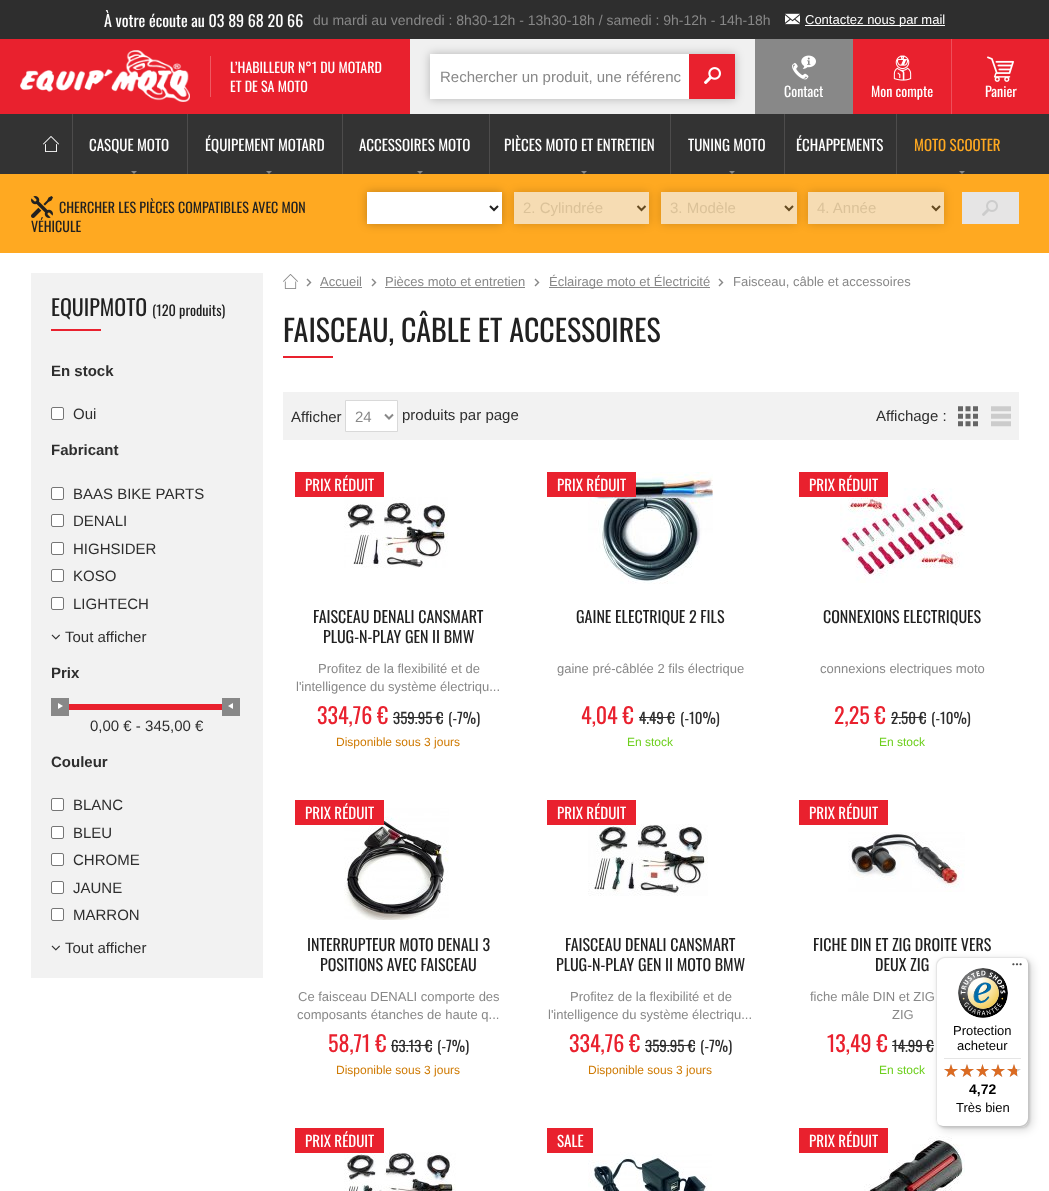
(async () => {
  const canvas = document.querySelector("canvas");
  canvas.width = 1049;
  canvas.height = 1191;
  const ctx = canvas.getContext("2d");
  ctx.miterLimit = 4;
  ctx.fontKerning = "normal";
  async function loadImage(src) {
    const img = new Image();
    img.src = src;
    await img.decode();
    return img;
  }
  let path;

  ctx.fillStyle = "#ffffff";
  ctx.fillRect(0, 0, 1049, 1191);
  ctx.fillStyle = "#e9212e";
  ctx.fillRect(0, 39, 1049, 75);
  ctx.fillStyle = "#f0f0f0";
  ctx.fillRect(410, 39, 345, 75);
  ctx.fillStyle = "rgba(0, 0, 0, 0.25)";
  ctx.filter = "blur(5px)";
  ctx.beginPath();
  ctx.rect(430, 54, 305, 45);
  ctx.fill();
  ctx.filter = "none";
  ctx.fillStyle = "#2e2e2e";
  ctx.fillRect(0, 0, 1049, 39);
  ctx.drawImage(await loadImage("img/1.png"), 785, 13, 15, 12);
  ctx.fillStyle = "#ffffff";
  ctx.fillRect(805, 25, 140, 1);
  ctx.drawImage(await loadImage("img/2.png"), 20, 50, 170, 52);
  for (const [x, y, w, h, color] of [
    [210, 56, 1, 41, "#ef5962"],
    [430, 54, 259, 45, "#ffffff"],
    [689, 54, 46, 45, "#e9212e"],
  ]) {
    ctx.fillStyle = color;
    ctx.fillRect(x, y, w, h);
  }
  ctx.drawImage(await loadImage("img/3.png"), 704, 67, 17, 17);
  ctx.fillStyle = "#888888";
  ctx.fillRect(755, 39, 98, 75);
  ctx.drawImage(await loadImage("img/4.png"), 792, 55, 24, 25);
  ctx.drawImage(await loadImage("img/5.png"), 893, 55, 19, 26);
  ctx.fillStyle = "#ee4f5a";
  ctx.fillRect(951, 39, 1, 75);
  ctx.drawImage(await loadImage("img/6.png"), 987, 56, 27, 26);
  ctx.fillStyle = "#333333";
  ctx.fillRect(0, 114, 1049, 60);
  ctx.drawImage(await loadImage("img/7.png"), 43, 136, 16, 16);
  ctx.fillStyle = "#4d4c4c";
  ctx.fillRect(72, 114, 1, 60);
  ctx.fillStyle = "#888888";
  path = new Path2D("M131 171H137L134 174Z");
  ctx.fill(path);
  ctx.fillStyle = "#4d4c4c";
  ctx.fillRect(187, 114, 1, 60);
  ctx.fillStyle = "#888888";
  path = new Path2D("M266 171H272L269 174Z");
  ctx.fill(path);
  ctx.fillStyle = "#4d4c4c";
  ctx.fillRect(342, 114, 1, 60);
  ctx.fillStyle = "#888888";
  path = new Path2D("M417 171H423L420 174Z");
  ctx.fill(path);
  ctx.fillStyle = "#4d4c4c";
  ctx.fillRect(489, 114, 1, 60);
  ctx.fillStyle = "#888888";
  path = new Path2D("M581 171H587L584 174Z");
  ctx.fill(path);
  ctx.fillStyle = "#4d4c4c";
  ctx.fillRect(670, 114, 1, 60);
  ctx.fillStyle = "#888888";
  path = new Path2D("M729 171H735L732 174Z");
  ctx.fill(path);
  ctx.fillStyle = "#4d4c4c";
  ctx.fillRect(784, 114, 1, 60);
  ctx.fillRect(896, 114, 1, 60);
  ctx.fillStyle = "#888888";
  path = new Path2D("M959 171H965L962 174Z");
  ctx.fill(path);
  ctx.fillStyle = "#ffa921";
  ctx.fillRect(0, 174, 1049, 79);
  ctx.fillStyle = "rgba(0, 0, 0, 0.25)";
  ctx.filter = "blur(5px)";
  ctx.beginPath();
  ctx.rect(367, 192, 135, 32);
  ctx.fill();
  ctx.filter = "none";
  ctx.fillStyle = "#ffffff";
  ctx.fillRect(367, 192, 135, 32);
  path = new Path2D("M490 206L494 210L498 206");
  ctx.strokeStyle = "#212121";
  ctx.lineWidth = 2;
  ctx.stroke(path);
  ctx.fillStyle = "rgba(0, 0, 0, 0.17)";
  ctx.filter = "blur(5px)";
  ctx.beginPath();
  ctx.rect(514, 192, 135, 32);
  ctx.fill();
  ctx.filter = "none";
  ctx.fillStyle = "#f6dcb3";
  ctx.fillRect(514, 192, 135, 32);
  path = new Path2D("M637.5 206L641.5 210L645.5 206");
  ctx.strokeStyle = "#644a21";
  ctx.stroke(path);
  ctx.fillStyle = "rgba(0, 0, 0, 0.17)";
  ctx.filter = "blur(5px)";
  ctx.beginPath();
  ctx.rect(661, 192, 136, 32);
  ctx.fill();
  ctx.filter = "none";
  ctx.fillStyle = "#f6dcb3";
  ctx.fillRect(661, 192, 136, 32);
  path = new Path2D("M785 206L789 210L793 206");
  ctx.stroke(path);
  ctx.fillStyle = "rgba(0, 0, 0, 0.17)";
  ctx.filter = "blur(5px)";
  ctx.beginPath();
  ctx.rect(808, 192, 136, 32);
  ctx.fill();
  ctx.filter = "none";
  ctx.fillStyle = "#f6dcb3";
  ctx.fillRect(808, 192, 136, 32);
  path = new Path2D("M932 206L936 210L940 206");
  ctx.stroke(path);
  ctx.fillStyle = "#e6e5e5";
  ctx.fillRect(962, 192, 57, 32);
  ctx.drawImage(await loadImage("img/9.png"), 982, 200, 16, 16);
  ctx.fillStyle = "#f2f2f2";
  ctx.fillRect(31, 273, 232, 705);
  ctx.fillStyle = "#e9212e";
  ctx.fillRect(51, 329, 50, 2);
  ctx.fillStyle = "#ffffff";
  ctx.beginPath();
  ctx.roundRect(51.5, 407.5, 12, 12, 1.5);
  ctx.fill();
  ctx.strokeStyle = "#767676";
  ctx.lineWidth = 1;
  ctx.stroke();
  ctx.beginPath();
  ctx.roundRect(51.5, 487.5, 12, 12, 1.5);
  ctx.fill();
  ctx.stroke();
  ctx.beginPath();
  ctx.roundRect(51.5, 514.5, 12, 12, 1.5);
  ctx.fill();
  ctx.stroke();
  ctx.beginPath();
  ctx.roundRect(51.5, 542.5, 12, 12, 1.5);
  ctx.fill();
  ctx.stroke();
  ctx.beginPath();
  ctx.roundRect(51.5, 569.5, 12, 12, 1.5);
  ctx.fill();
  ctx.stroke();
  ctx.beginPath();
  ctx.roundRect(51.5, 597.5, 12, 12, 1.5);
  ctx.fill();
  ctx.stroke();
  ctx.drawImage(await loadImage("img/10.png"), 51, 634, 9, 6);
  ctx.strokeStyle = "#e9212e";
  ctx.strokeRect(60.5, 704.5, 172, 5);
  ctx.fillStyle = "#e9212e";
  ctx.fillRect(61, 705, 161, 4);
  ctx.fillStyle = "#888888";
  ctx.fillRect(51, 698, 18, 18);
  ctx.fillStyle = "#ffffff";
  path = new Path2D("M58 709V703L63 706Z");
  ctx.fill(path);
  ctx.fillStyle = "#888888";
  ctx.fillRect(222, 698, 18, 18);
  ctx.fillStyle = "#ffffff";
  path = new Path2D("M233 703V709L228 706Z");
  ctx.fill(path);
  ctx.beginPath();
  ctx.roundRect(51.5, 798.5, 12, 12, 1.5);
  ctx.fill();
  ctx.strokeStyle = "#767676";
  ctx.stroke();
  ctx.beginPath();
  ctx.roundRect(51.5, 826.5, 12, 12, 1.5);
  ctx.fill();
  ctx.stroke();
  ctx.beginPath();
  ctx.roundRect(51.5, 853.5, 12, 12, 1.5);
  ctx.fill();
  ctx.stroke();
  ctx.beginPath();
  ctx.roundRect(51.5, 881.5, 12, 12, 1.5);
  ctx.fill();
  ctx.stroke();
  ctx.beginPath();
  ctx.roundRect(51.5, 908.5, 12, 12, 1.5);
  ctx.fill();
  ctx.stroke();
  ctx.drawImage(await loadImage("img/10.png"), 51, 945, 9, 6);
  ctx.drawImage(await loadImage("img/11.png"), 283, 274, 15, 15);
  ctx.drawImage(await loadImage("img/12.png"), 306, 278, 6, 9);
  ctx.fillStyle = "#888888";
  ctx.fillRect(320, 287, 42, 1);
  ctx.drawImage(await loadImage("img/12.png"), 371, 278, 6, 9);
  ctx.fillRect(385, 287, 140, 1);
  ctx.drawImage(await loadImage("img/12.png"), 534, 278, 6, 9);
  ctx.fillRect(549, 287, 161, 1);
  ctx.drawImage(await loadImage("img/12.png"), 718, 278, 6, 9);
  ctx.fillStyle = "#e9212e";
  ctx.fillRect(283, 356, 50, 2);
  ctx.fillStyle = "#f2f2f2";
  ctx.fillRect(283, 392, 736, 48);
  ctx.fillStyle = "#ffffff";
  ctx.beginPath();
  ctx.rect(345.5, 400.5, 52, 31);
  ctx.fill();
  ctx.strokeStyle = "#d9d9d9";
  ctx.stroke();
  path = new Path2D("M385 414.5L389 418.5L393 414.5");
  ctx.strokeStyle = "#888888";
  ctx.lineWidth = 2;
  ctx.stroke(path);
  ctx.drawImage(await loadImage("img/13.png"), 958, 406, 20, 21);
  ctx.drawImage(await loadImage("img/14.png"), 991, 406, 20, 21);
  ctx.fillStyle = "#e9212e";
  ctx.fillRect(295, 472, 89, 25);
  ctx.drawImage(await loadImage("img/15.png"), 344, 497, 104, 71);
  ctx.fillStyle = "#2e2e2e";
  ctx.fillRect(393, 717, 43, 1);
  ctx.fillRect(436, 717, 7, 1);
  ctx.drawImage(await loadImage("img/16.png"), 588, 472, 125, 112);
  ctx.fillStyle = "#e9212e";
  ctx.fillRect(547, 472, 89, 25);
  ctx.fillStyle = "#2e2e2e";
  ctx.fillRect(639, 717, 36, 1);
  ctx.drawImage(await loadImage("img/17.png"), 840, 488, 125, 95);
  for (const [x, y, w, h, color] of [
    [799, 472, 89, 25, "#e9212e"],
    [891, 717, 28, 1, "#2e2e2e"],
    [919, 717, 7, 1, "#2e2e2e"],
  ]) {
    ctx.fillStyle = color;
    ctx.fillRect(x, y, w, h);
  }
  ctx.drawImage(await loadImage("img/18.png"), 344, 808, 105, 112);
  for (const [x, y, w, h, color] of [
    [295, 800, 89, 25, "#e9212e"],
    [391, 1045, 34, 1, "#2e2e2e"],
    [425, 1045, 7, 1, "#2e2e2e"],
  ]) {
    ctx.fillStyle = color;
    ctx.fillRect(x, y, w, h);
  }
  ctx.drawImage(await loadImage("img/19.png"), 588, 824, 120, 72);
  for (const [x, y, w, h, color] of [
    [547, 800, 89, 25, "#e9212e"],
    [645, 1045, 43, 1, "#2e2e2e"],
    [688, 1045, 7, 1, "#2e2e2e"],
    [799, 800, 89, 25, "#e9212e"],
  ]) {
    ctx.fillStyle = color;
    ctx.fillRect(x, y, w, h);
  }
  ctx.drawImage(await loadImage("img/20.png"), 848, 832, 117, 60);
  ctx.fillStyle = "#2e2e2e";
  ctx.fillRect(892, 1045, 42, 1);
  ctx.drawImage(await loadImage("img/21.png"), 344, 1152, 112, 39);
  ctx.fillStyle = "#e9212e";
  ctx.fillRect(295, 1128, 89, 25);
  ctx.drawImage(await loadImage("img/22.png"), 588, 1152, 124, 39);
  ctx.fillRect(547, 1128, 46, 25);
  ctx.drawImage(await loadImage("img/23.png"), 864, 1136, 101, 55);
  ctx.fillRect(799, 1128, 89, 25);
  ctx.fillStyle = "rgba(0, 0, 0, 0.15)";
  ctx.filter = "blur(4px)";
  ctx.beginPath();
  ctx.roundRect(939, 960, 93, 170, 8);
  ctx.fill();
  ctx.filter = "none";
  ctx.filter = "blur(1px)";
  ctx.beginPath();
  ctx.roundRect(937, 958, 93, 170, 8);
  ctx.fill();
  ctx.filter = "none";
  ctx.fillStyle = "#ffffff";
  ctx.beginPath();
  ctx.roundRect(936, 957, 93, 170, 8);
  ctx.fill();
  ctx.fillStyle = "#e5e5e5";
  path = new Path2D("M945 958H1022C1024 958 1026 959 1028 961C1026 959 1024 957 1021 957H944C940 957 936 961 936 965V1119C936 1122 938 1124 940 1126C938 1124 937 1122 937 1120V966C937 962 941 958 945 958Z");
  ctx.fill(path);
  ctx.fillStyle = "#cccccc";
  path = new Path2D("M937 1123C939 1125 941 1127 944 1127H1021C1025 1127 1029 1123 1029 1119V965C1029 962 1027 960 1025 958C1027 960 1028 962 1028 964V1118C1028 1122 1024 1126 1020 1126H943C941 1126 939 1125 937 1123Z");
  ctx.fill(path);
  ctx.fillStyle = "rgba(50, 50, 50, 0.2)";
  path = new Path2D("M938 1124C939 1126 942 1127 944 1127H1021C1025 1127 1029 1123 1029 1119V965C1029 963 1028 960 1026 959C1027 960 1028 962 1028 964V1118C1028 1123 1025 1126 1020 1126H943C941 1126 939 1125 938 1124Z");
  ctx.fill(path);
  ctx.fillStyle = "rgba(255, 255, 255, 0.3)";
  path = new Path2D("M936 1118V1119C936 1123 940 1127 944 1127H1021C1025 1127 1029 1123 1029 1119V965C1029 963 1028 960 1026 959C1027 960 1028 962 1028 964V1118C1028 1123 1025 1126 1020 1126H944C939 1126 936 1123 936 1118Z");
  ctx.fill(path);
  ctx.drawImage(await loadImage("img/24.png"), 1012, 963, 10, 3);
  ctx.drawImage(await loadImage("img/25.png"), 958, 968, 50, 50);
  ctx.fillStyle = "#e5e5e5";
  ctx.fillRect(944, 1058, 77, 1);
  ctx.drawImage(await loadImage("img/26.png"), 944, 1064, 14, 13);
  ctx.drawImage(await loadImage("img/26.png"), 960, 1064, 14, 13);
  ctx.drawImage(await loadImage("img/27.png"), 976, 1064, 13, 13);
  ctx.drawImage(await loadImage("img/26.png"), 991, 1064, 14, 13);
  ctx.drawImage(await loadImage("img/26.png"), 1007, 1064, 14, 13);
  ctx.drawImage(await loadImage("img/28.png"), 944, 1064, 14, 13);
  ctx.drawImage(await loadImage("img/28.png"), 960, 1064, 14, 13);
  ctx.drawImage(await loadImage("img/29.png"), 976, 1064, 13, 13);
  ctx.drawImage(await loadImage("img/28.png"), 991, 1064, 14, 13);
  ctx.drawImage(await loadImage("img/30.png"), 1007, 1064, 10, 13);
  ctx.font = "16px Oswald";
  ctx.fillStyle = "#ffffff";
  ctx.fillText("À votre écoute au 03 89 68 20 66", 104, 27);
  ctx.font = "14px Liberation Sans";
  ctx.fillStyle = "#888888";
  ctx.fillText("du mardi au vendredi : 8h30-12h - 13h30-18h / samedi : 9h-12h - 14h-18h", 313, 25);
  ctx.font = "13px Liberation Sans";
  ctx.fillStyle = "#ffffff";
  ctx.fillText("Contactez nous par mail", 805, 24);
  ctx.font = "14px Oswald";
  ctx.fillText("L’HABILLEUR N°1 DU MOTARD", 230, 73);
  ctx.fillText("ET DE SA MOTO", 230, 92);
  ctx.font = "15px Liberation Sans";
  ctx.fillStyle = "#888888";
  ctx.fillText("Rechercher un produit, une référenc", 440, 82);
  ctx.font = "14px Oswald";
  ctx.fillStyle = "#ffffff";
  for (const [text, x, y] of [
    ["Contact", 784, 97],
    ["Mon compte", 871, 97],
    ["Panier", 985, 97],
  ]) {
    ctx.fillText(text, x, y);
  }
  ctx.font = "15px Oswald";
  for (const [text, x, y] of [
    ["CASQUE MOTO", 89, 151],
    ["ÉQUIPEMENT MOTARD", 205, 151],
    ["ACCESSOIRES MOTO", 359, 151],
    ["PIÈCES MOTO ET ENTRETIEN", 504, 151],
    ["TUNING MOTO", 688, 151],
    ["ÉCHAPPEMENTS", 796, 151],
  ]) {
    ctx.fillText(text, x, y);
  }
  ctx.fillStyle = "#ffa921";
  ctx.fillText("MOTO SCOOTER", 914, 151);
  ctx.font = "14px Oswald";
  ctx.fillStyle = "#212121";
  ctx.fillText("CHERCHER LES PIÈCES COMPATIBLES AVEC MON", 59, 213);
  ctx.fillText("VÉHICULE", 31, 232);
  ctx.drawImage(await loadImage("img/8.png"), 31, 196, 22, 22);
  ctx.font = "15px Liberation Sans";
  ctx.fillStyle = "#dbc299";
  for (const [text, x, y] of [
    ["2. Cylindrée", 523, 213],
    ["3. Modèle", 670, 213],
    ["4. Année", 817, 213],
  ]) {
    ctx.fillText(text, x, y);
  }
  ctx.font = "22px Oswald";
  ctx.fillStyle = "#212121";
  ctx.fillText("EQUIPMOTO", 51, 316);
  ctx.font = "14.25px Oswald";
  ctx.fillText("(120 produits)", 152, 316);
  ctx.font = "bold 15px Liberation Sans";
  ctx.fillStyle = "#2e2e2e";
  ctx.fillText("En stock", 51, 376);
  ctx.font = "15px Liberation Sans";
  ctx.fillText("Oui", 73, 419);
  ctx.font = "bold 15px Liberation Sans";
  ctx.fillText("Fabricant", 51, 455);
  ctx.font = "15px Liberation Sans";
  for (const [text, x, y] of [
    ["BAAS BIKE PARTS", 73, 499],
    ["DENALI", 73, 526],
    ["HIGHSIDER", 73, 554],
    ["KOSO", 73, 581],
    ["LIGHTECH", 73, 609],
    ["Tout afficher", 65, 642],
  ]) {
    ctx.fillText(text, x, y);
  }
  ctx.font = "bold 15px Liberation Sans";
  ctx.fillText("Prix", 51, 678);
  ctx.font = "15px Liberation Sans";
  ctx.fillText("0,00 € - 345,00 €", 90, 731);
  ctx.font = "bold 15px Liberation Sans";
  ctx.fillText("Couleur", 51, 767);
  ctx.font = "15px Liberation Sans";
  for (const [text, x, y] of [
    ["BLANC", 73, 810],
    ["BLEU", 73, 838],
    ["CHROME", 73, 865],
    ["JAUNE", 73, 893],
    ["MARRON", 73, 920],
    ["Tout afficher", 65, 953],
  ]) {
    ctx.fillText(text, x, y);
  }
  ctx.font = "13px Liberation Sans";
  ctx.fillStyle = "#888888";
  for (const [text, x, y] of [
    ["Accueil", 320, 286],
    ["Pièces moto et entretien", 385, 286],
    ["Éclairage moto et Électricité", 549, 286],
    ["Faisceau, câble et accessoires", 733, 286],
  ]) {
    ctx.fillText(text, x, y);
  }
  ctx.font = "30px Oswald";
  ctx.fillStyle = "#212121";
  ctx.fillText("FAISCEAU, CÂBLE ET ACCESSOIRES", 283, 342);
  ctx.font = "15px Liberation Sans";
  ctx.fillStyle = "#2e2e2e";
  ctx.fillText("Afficher", 291, 422);
  ctx.fillStyle = "#888888";
  ctx.fillText("24", 355, 422);
  ctx.fillStyle = "#2e2e2e";
  ctx.fillText("produits par page", 402, 420);
  ctx.fillText("Affichage :", 876, 421);
  ctx.font = "15px Oswald";
  ctx.fillStyle = "#ffffff";
  ctx.fillText("PRIX RÉDUIT", 305, 491);
  ctx.font = "16px Oswald";
  ctx.fillStyle = "#212121";
  ctx.fillText("FAISCEAU DENALI CANSMART", 313, 623);
  ctx.fillText("PLUG-N-PLAY GEN II BMW", 323, 643);
  ctx.font = "13px Liberation Sans";
  ctx.fillStyle = "#888888";
  ctx.fillText("Profitez de la flexibilité et de", 318, 673);
  ctx.fillText("l'intelligence du système électriqu...", 296, 691);
  ctx.font = "22px Oswald";
  ctx.fillStyle = "#e9212e";
  ctx.fillText("334,76 €", 317, 724);
  ctx.font = "15px Oswald";
  ctx.fillStyle = "#2e2e2e";
  for (const [text, x, y] of [
    ["359.95", 393, 724],
    ["€", 436, 724],
    ["(-7%)", 448, 724],
  ]) {
    ctx.fillText(text, x, y);
  }
  ctx.font = "12px Liberation Sans";
  ctx.fillStyle = "#cf7b05";
  ctx.fillText("Disponible sous 3 jours", 336, 746);
  ctx.font = "15px Oswald";
  ctx.fillStyle = "#ffffff";
  ctx.fillText("PRIX RÉDUIT", 557, 491);
  ctx.font = "16px Oswald";
  ctx.fillStyle = "#212121";
  ctx.fillText("GAINE ELECTRIQUE 2 FILS", 576, 623);
  ctx.font = "13px Liberation Sans";
  ctx.fillStyle = "#888888";
  ctx.fillText("gaine pré-câblée 2 fils électrique", 557, 673);
  ctx.font = "22px Oswald";
  ctx.fillStyle = "#e9212e";
  ctx.fillText("4,04 €", 581, 724);
  ctx.font = "15px Oswald";
  ctx.fillStyle = "#2e2e2e";
  ctx.fillText("4.49 €", 639, 724);
  ctx.fillText("(-10%)", 680, 724);
  ctx.font = "12px Liberation Sans";
  ctx.fillStyle = "#6dcf1d";
  ctx.fillText("En stock", 627, 746);
  ctx.font = "15px Oswald";
  ctx.fillStyle = "#ffffff";
  ctx.fillText("PRIX RÉDUIT", 809, 491);
  ctx.font = "16px Oswald";
  ctx.fillStyle = "#212121";
  ctx.fillText("CONNEXIONS ELECTRIQUES", 823, 623);
  ctx.font = "13px Liberation Sans";
  ctx.fillStyle = "#888888";
  ctx.fillText("connexions electriques moto", 820, 673);
  ctx.font = "22px Oswald";
  ctx.fillStyle = "#e9212e";
  ctx.fillText("2,25 €", 834, 724);
  ctx.font = "15px Oswald";
  ctx.fillStyle = "#2e2e2e";
  for (const [text, x, y] of [
    ["2.50", 891, 724],
    ["€", 919, 724],
    ["(-10%)", 931, 724],
  ]) {
    ctx.fillText(text, x, y);
  }
  ctx.font = "12px Liberation Sans";
  ctx.fillStyle = "#6dcf1d";
  ctx.fillText("En stock", 879, 746);
  ctx.font = "15px Oswald";
  ctx.fillStyle = "#ffffff";
  ctx.fillText("PRIX RÉDUIT", 305, 819);
  ctx.font = "16px Oswald";
  ctx.fillStyle = "#212121";
  ctx.fillText("INTERRUPTEUR MOTO DENALI 3", 307, 951);
  ctx.fillText("POSITIONS AVEC FAISCEAU", 320, 971);
  ctx.font = "13px Liberation Sans";
  ctx.fillStyle = "#888888";
  ctx.fillText("Ce faisceau DENALI comporte des", 298, 1001);
  ctx.fillText("composants étanches de haute q...", 297, 1019);
  ctx.font = "22px Oswald";
  ctx.fillStyle = "#e9212e";
  ctx.fillText("58,71 €", 328, 1052);
  ctx.font = "15px Oswald";
  ctx.fillStyle = "#2e2e2e";
  for (const [text, x, y] of [
    ["63.13", 391, 1052],
    ["€", 425, 1052],
    ["(-7%)", 437, 1052],
  ]) {
    ctx.fillText(text, x, y);
  }
  ctx.font = "12px Liberation Sans";
  ctx.fillStyle = "#cf7b05";
  ctx.fillText("Disponible sous 3 jours", 336, 1074);
  ctx.font = "15px Oswald";
  ctx.fillStyle = "#ffffff";
  ctx.fillText("PRIX RÉDUIT", 557, 819);
  ctx.font = "16px Oswald";
  ctx.fillStyle = "#212121";
  ctx.fillText("FAISCEAU DENALI CANSMART", 565, 951);
  ctx.fillText("PLUG-N-PLAY GEN II MOTO BMW", 556, 971);
  ctx.font = "13px Liberation Sans";
  ctx.fillStyle = "#888888";
  ctx.fillText("Profitez de la flexibilité et de", 570, 1001);
  ctx.fillText("l'intelligence du système électriqu...", 548, 1019);
  ctx.font = "22px Oswald";
  ctx.fillStyle = "#e9212e";
  ctx.fillText("334,76 €", 569, 1052);
  ctx.font = "15px Oswald";
  ctx.fillStyle = "#2e2e2e";
  for (const [text, x, y] of [
    ["359.95", 645, 1052],
    ["€", 688, 1052],
    ["(-7%)", 700, 1052],
  ]) {
    ctx.fillText(text, x, y);
  }
  ctx.font = "12px Liberation Sans";
  ctx.fillStyle = "#cf7b05";
  ctx.fillText("Disponible sous 3 jours", 588, 1074);
  ctx.font = "15px Oswald";
  ctx.fillStyle = "#ffffff";
  ctx.fillText("PRIX RÉDUIT", 809, 819);
  ctx.font = "16px Oswald";
  ctx.fillStyle = "#212121";
  ctx.fillText("FICHE DIN ET ZIG DROITE VERS", 813, 951);
  ctx.fillText("DEUX ZIG", 875, 971);
  ctx.font = "13px Liberation Sans";
  ctx.fillStyle = "#888888";
  ctx.fillText("fiche mâle DIN et ZIG", 810, 1001);
  ctx.fillText("ZIG", 892, 1019);
  ctx.font = "22px Oswald";
  ctx.fillStyle = "#e9212e";
  ctx.fillText("13,49 €", 827, 1052);
  ctx.font = "15px Oswald";
  ctx.fillStyle = "#2e2e2e";
  ctx.fillText("14.99 €", 892, 1052);
  ctx.font = "12px Liberation Sans";
  ctx.fillStyle = "#6dcf1d";
  ctx.fillText("En stock", 879, 1074);
  ctx.font = "15px Oswald";
  ctx.fillStyle = "#ffffff";
  for (const [text, x, y] of [
    ["PRIX RÉDUIT", 305, 1147],
    ["SALE", 557, 1147],
    ["PRIX RÉDUIT", 809, 1147],
  ]) {
    ctx.fillText(text, x, y);
  }
  ctx.font = "13px Liberation Sans";
  ctx.fillStyle = "#000000";
  ctx.fillText("Protection", 953, 1035);
  ctx.fillText("acheteur", 957, 1050);
  ctx.font = "bold 14px Liberation Sans";
  ctx.fillText("4,72", 969, 1094);
  ctx.font = "13px Liberation Sans";
  ctx.fillText("Très bien", 956, 1112);
})();
